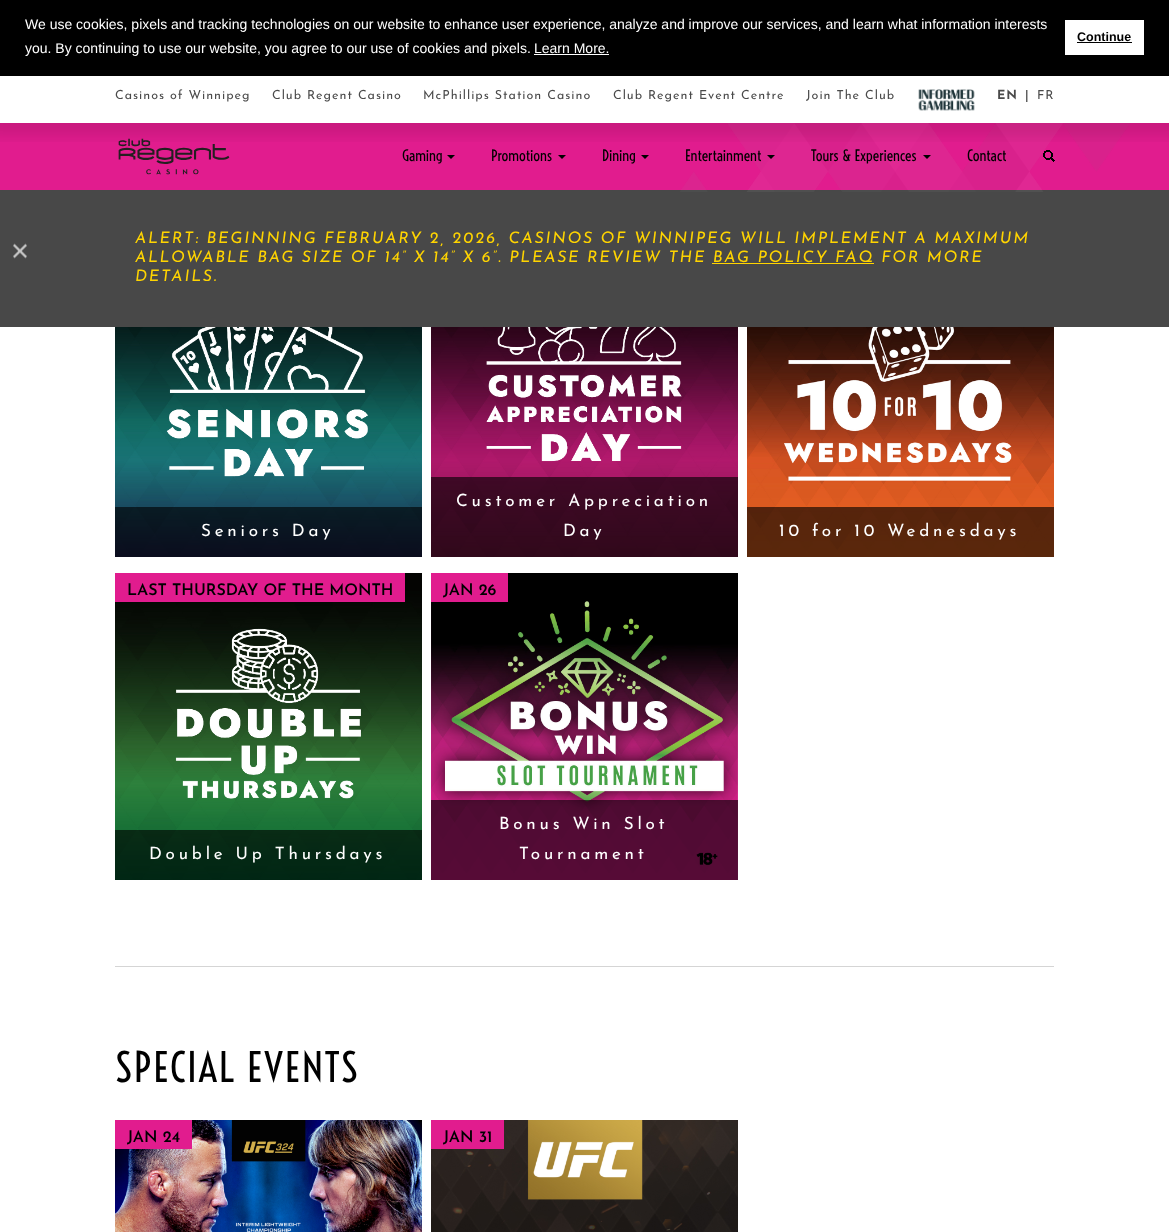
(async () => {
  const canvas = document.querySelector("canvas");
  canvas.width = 1169;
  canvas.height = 1232;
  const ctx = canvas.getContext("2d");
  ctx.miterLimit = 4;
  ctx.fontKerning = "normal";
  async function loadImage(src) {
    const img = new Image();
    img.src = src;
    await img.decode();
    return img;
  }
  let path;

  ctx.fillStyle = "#ffffff";
  ctx.fillRect(0, 0, 1169, 1232);
  ctx.fillStyle = "#e11c8e";
  ctx.fillRect(0, 123, 1169, 67);
  ctx.save();
  ctx.beginPath();
  ctx.rect(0, 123, 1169, 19);
  ctx.clip();
  ctx.fillStyle = "rgba(0, 0, 0, 0.11)";
  ctx.filter = "blur(7.5px)";
  ctx.beginPath();
  ctx.rect(-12, 64, 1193, 71);
  ctx.fill();
  ctx.filter = "none";
  ctx.restore();
  for (const [x, y, w, h, color] of [
    [0, 0, 1169, 76, "#000000"],
    [534, 54, 75, 1, "#ffffff"],
    [1065, 20, 79, 35, "#ffffff"],
    [1077, 42, 55, 1, "#000000"],
  ]) {
    ctx.fillStyle = color;
    ctx.fillRect(x, y, w, h);
  }
  ctx.drawImage(await loadImage("img/1.png"), 918, 89, 57, 22);
  ctx.fillStyle = "#484848";
  ctx.fillRect(0, 190, 1169, 137);
  ctx.drawImage(await loadImage("img/2.png"), 680, 123, 450, 69);
  ctx.drawImage(await loadImage("img/3.png"), 118, 138, 112, 37);
  ctx.fillStyle = "#000000";
  path = new Path2D("M447 155H455L451 159Z");
  ctx.fill(path);
  path = new Path2D("M558 155H566L562 159Z");
  ctx.fill(path);
  path = new Path2D("M641 155H649L645 159Z");
  ctx.fill(path);
  path = new Path2D("M767 155H775L771 159Z");
  ctx.fill(path);
  path = new Path2D("M923 155H931L927 159Z");
  ctx.fill(path);
  ctx.drawImage(await loadImage("img/4.png"), 1043, 150, 12, 12);
  ctx.drawImage(await loadImage("img/5.png"), 13, 243, 14, 16);
  ctx.fillStyle = "#ffd400";
  ctx.fillRect(712, 263, 162, 1);
  ctx.drawImage(await loadImage("img/6.png"), 115, 327, 307, 230);
  ctx.fillStyle = "rgba(0, 0, 0, 0.62)";
  ctx.fillRect(115, 507, 307, 50);
  ctx.drawImage(await loadImage("img/7.png"), 431, 327, 307, 230);
  ctx.fillRect(431, 477, 307, 80);
  ctx.drawImage(await loadImage("img/8.png"), 747, 327, 307, 230);
  ctx.fillRect(747, 507, 307, 50);
  ctx.drawImage(await loadImage("img/9.png"), 115, 573, 307, 307);
  ctx.fillStyle = "#e11c8e";
  ctx.fillRect(115, 573, 290, 29);
  ctx.fillStyle = "rgba(0, 0, 0, 0.62)";
  ctx.fillRect(115, 830, 307, 50);
  ctx.drawImage(await loadImage("img/10.png"), 431, 573, 307, 307);
  for (const [x, y, w, h, color] of [
    [431, 573, 77, 29, "#e11c8e"],
    [431, 800, 307, 80, "rgba(0, 0, 0, 0.62)"],
    [115, 966, 939, 1, "#d5d5d5"],
  ]) {
    ctx.fillStyle = color;
    ctx.fillRect(x, y, w, h);
  }
  ctx.drawImage(await loadImage("img/11.png"), 115, 1120, 307, 112);
  ctx.fillStyle = "#e11c8e";
  ctx.fillRect(115, 1120, 77, 29);
  ctx.drawImage(await loadImage("img/12.png"), 431, 1120, 307, 112);
  ctx.fillRect(431, 1120, 73, 29);
  ctx.font = "14px Liberation Sans";
  ctx.fillStyle = "#ffffff";
  for (const [text, x, y] of [
    ["We use cookies, pixels and tracking technologies on our website to enhance user experience, analyze and improve our services, and learn what information interests", 25, 29],
    ["you. By continuing to use our website, you agree to our use of cookies and pixels.", 25, 53],
    ["Learn More.", 534, 53],
  ]) {
    ctx.fillText(text, x, y);
  }
  ctx.font = "bold 12.5px Liberation Sans";
  ctx.fillStyle = "#000000";
  ctx.fillText("Continue", 1077, 41);
  ctx.letterSpacing = "1px";
  ctx.font = "12.5px Josefin Sans";
  ctx.fillStyle = "#4a4a4a";
  for (const [text, x, y] of [
    ["Casinos of Winnipeg", 115, 99],
    ["Club Regent Casino", 272, 99],
    ["McPhillips Station Casino", 423, 99],
    ["Club Regent Event Centre", 613, 99],
    ["Join The Club", 806, 99],
  ]) {
    ctx.fillText(text, x, y);
  }
  ctx.font = "bold 12.5px Josefin Sans";
  ctx.fillText("EN", 997, 99);
  ctx.font = "600 12.5px Josefin Sans";
  ctx.fillText("|", 1025, 99);
  ctx.font = "12.5px Josefin Sans";
  ctx.fillText("FR", 1037, 99);
  ctx.letterSpacing = "0px";
  ctx.font = "15px Voltaire";
  ctx.fillStyle = "#000000";
  for (const [text, x, y] of [
    ["Gaming", 402, 161],
    ["Promotions", 491, 161],
    ["Dining", 602, 161],
    ["Entertainment", 685, 161],
    ["Tours & Experiences", 811, 161],
    ["Contact", 967, 161],
  ]) {
    ctx.fillText(text, x, y);
  }
  ctx.letterSpacing = "1.82px";
  ctx.font = "italic 16px Josefin Sans";
  ctx.fillStyle = "#ffd400";
  for (const [text, x, y] of [
    ["ALERT: BEGINNING FEBRUARY 2, 2026, CASINOS OF WINNIPEG WILL IMPLEMENT A MAXIMUM", 135, 243],
    ["ALLOWABLE BAG SIZE OF 14” X 14” X 6”. PLEASE REVIEW THE BAG POLICY FAQ FOR MORE", 135, 262],
    ["DETAILS.", 135, 281],
  ]) {
    ctx.fillText(text, x, y);
  }
  ctx.letterSpacing = "3.8px";
  ctx.font = "17px Josefin Sans";
  ctx.fillStyle = "#ffffff";
  for (const [text, x, y] of [
    ["Seniors Day", 201, 536],
    ["Customer Appreciation", 456, 506],
    ["Day", 563, 536],
    ["10 for 10 Wednesdays", 779, 536],
  ]) {
    ctx.fillText(text, x, y);
  }
  ctx.letterSpacing = "0px";
  ctx.font = "600 16px Josefin Sans";
  ctx.fillStyle = "#000000";
  ctx.fillText("LAST THURSDAY OF THE MONTH", 127, 595);
  ctx.letterSpacing = "3.8px";
  ctx.font = "17px Josefin Sans";
  ctx.fillStyle = "#ffffff";
  ctx.fillText("Double Up Thursdays", 149, 859);
  ctx.letterSpacing = "0px";
  ctx.font = "600 16px Josefin Sans";
  ctx.fillStyle = "#000000";
  ctx.fillText("JAN 26", 443, 595);
  ctx.letterSpacing = "3.8px";
  ctx.font = "17px Josefin Sans";
  ctx.fillStyle = "#ffffff";
  ctx.fillText("Bonus Win Slot", 499, 829);
  ctx.fillText("Tournament", 519, 859);
  ctx.letterSpacing = "1.75px";
  ctx.font = "40px Voltaire";
  ctx.fillStyle = "#000000";
  ctx.fillText("SPECIAL EVENTS", 115, 1082);
  ctx.letterSpacing = "0px";
  ctx.font = "600 16px Josefin Sans";
  ctx.fillText("JAN 24", 127, 1142);
  ctx.fillText("JAN 31", 443, 1142);
})();
